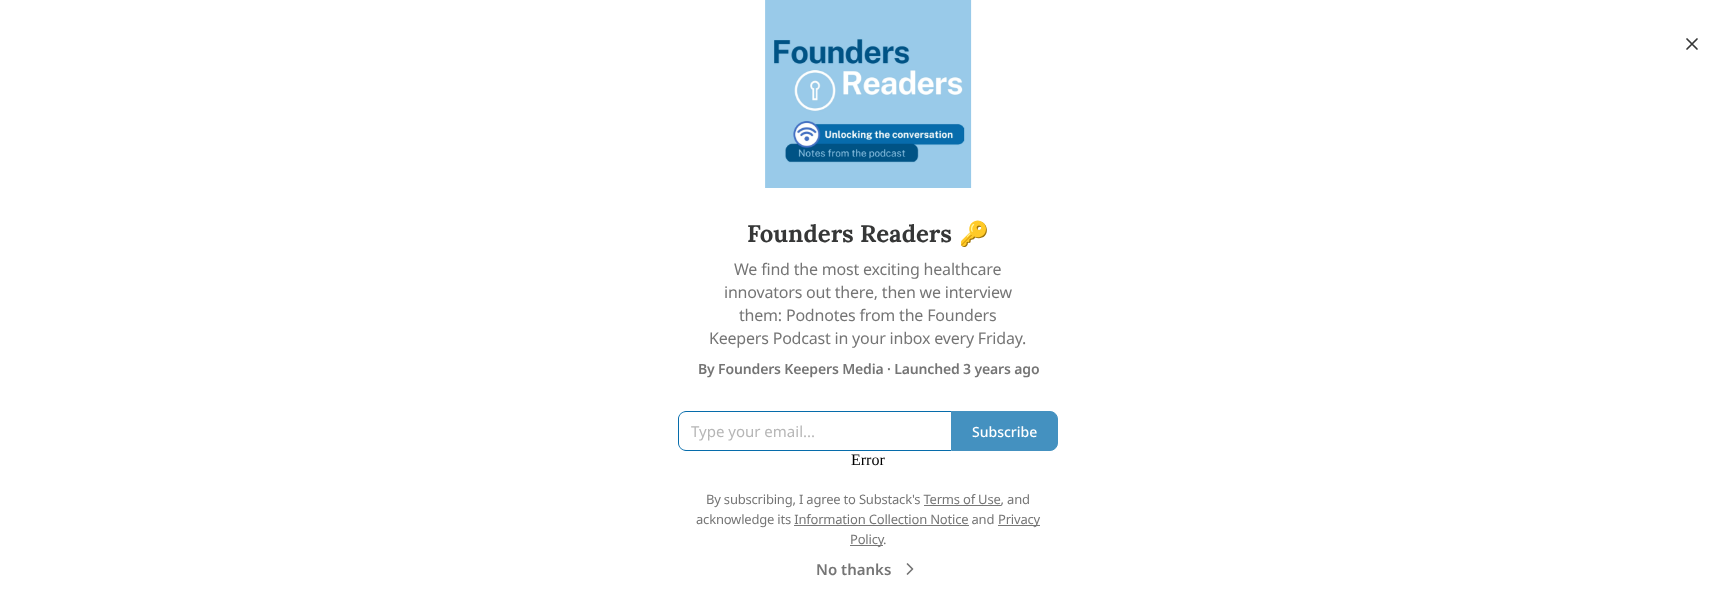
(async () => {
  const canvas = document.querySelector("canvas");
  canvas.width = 1736;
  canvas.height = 590;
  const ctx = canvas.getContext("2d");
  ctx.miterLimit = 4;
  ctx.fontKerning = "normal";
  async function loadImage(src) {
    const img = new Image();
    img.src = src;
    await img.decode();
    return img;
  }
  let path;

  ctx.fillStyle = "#ffffff";
  ctx.fillRect(0, 0, 1736, 590);
  ctx.drawImage(await loadImage("img/1.png"), 765, 0, 207, 188);
  path = new Path2D("M1697 39L1687 49M1687 39L1697 49");
  ctx.strokeStyle = "#363737";
  ctx.lineWidth = 1.7;
  ctx.lineCap = "round";
  ctx.lineJoin = "round";
  ctx.stroke(path);
  ctx.fillStyle = "#066cab";
  path = new Path2D("M686 411H951V451H686C682 451 678 447 678 443V419C678 415 682 411 686 411ZM686 412H951V450H686C682 450 679 447 679 443V419C679 415 682 412 686 412Z");
  ctx.fill(path, "evenodd");
  ctx.fillStyle = "#4491c0";
  ctx.beginPath();
  ctx.roundRect(951.5, 411.5, 106, 39, [0, 7.5, 7.5, 0]);
  ctx.fill();
  ctx.strokeStyle = "#4491c0";
  ctx.lineWidth = 1;
  ctx.lineJoin = "miter";
  ctx.stroke();
  ctx.fillStyle = "#777777";
  ctx.fillRect(998, 525, 42, 1);
  ctx.fillRect(850, 545, 33, 1);
  path = new Path2D("M907.5 574L912.5 569L907.5 564");
  ctx.strokeStyle = "#757575";
  ctx.lineWidth = 1.7;
  ctx.lineJoin = "round";
  ctx.stroke(path);
  ctx.font = "bold 24px Lora";
  ctx.fillStyle = "#363737";
  ctx.fillText("Founders Readers", 747, 242);
  ctx.font = "bold 24px Noto Color Emoji";
  ctx.fillText("🔑", 959, 242);
  ctx.letterSpacing = "-0.2px";
  ctx.font = "16px Noto Sans";
  ctx.fillStyle = "#757575";
  for (const [text, x, y] of [
    ["We find the most exciting healthcare", 734, 275],
    ["innovators out there, then we interview", 724, 298],
    ["them: Podnotes from the Founders", 739, 321],
    ["Keepers Podcast in your inbox every Friday.", 709, 344],
  ]) {
    ctx.fillText(text, x, y);
  }
  ctx.letterSpacing = "-0.15px";
  ctx.font = "600 14px Noto Sans";
  ctx.fillText("By Founders Keepers Media · Launched 3 years ago", 698, 374);
  ctx.letterSpacing = "0px";
  ctx.font = "15px Noto Sans";
  ctx.fillStyle = "#b6b6b6";
  ctx.fillText("Type your email...", 691, 437);
  ctx.font = "500 14px Noto Sans";
  ctx.fillStyle = "#ffffff";
  ctx.fillText("Subscribe", 972, 437);
  ctx.font = "16px Liberation Serif";
  ctx.fillStyle = "#000000";
  ctx.fillText("Error", 851, 465);
  ctx.letterSpacing = "-0.2px";
  ctx.font = "13px Noto Sans";
  ctx.fillStyle = "#757575";
  ctx.fillText("By subscribing, I agree to Substack's Terms of Use, and", 706, 504);
  ctx.fillStyle = "#777777";
  ctx.fillRect(924, 505, 77, 1);
  ctx.fillStyle = "#757575";
  ctx.fillText("acknowledge its Information Collection Notice and", 696, 524);
  ctx.fillText("Privacy", 998, 524);
  ctx.fillStyle = "#777777";
  ctx.fillRect(794, 525, 175, 1);
  ctx.fillStyle = "#757575";
  ctx.fillText("Policy", 850, 544);
  ctx.fillText(".", 883, 544);
  ctx.letterSpacing = "0px";
  ctx.font = "600 15px Noto Sans";
  ctx.fillText("No thanks", 816, 575);
})();
